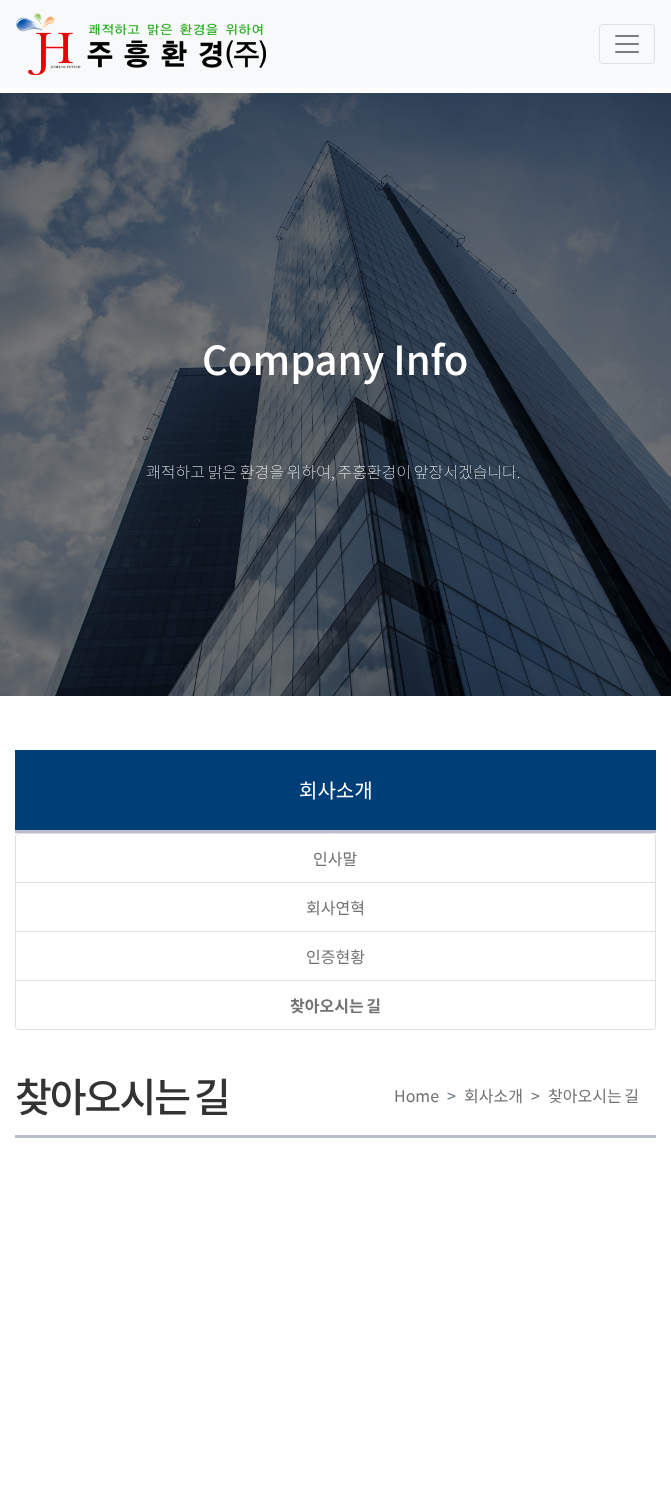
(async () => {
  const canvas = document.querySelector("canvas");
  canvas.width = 671;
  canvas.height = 1508;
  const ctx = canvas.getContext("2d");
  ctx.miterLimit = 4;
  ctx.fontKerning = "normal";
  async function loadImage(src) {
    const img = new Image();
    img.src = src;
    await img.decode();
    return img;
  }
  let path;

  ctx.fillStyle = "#ffffff";
  ctx.fillRect(0, 0, 671, 1508);
  ctx.fillStyle = "#f8f9fa";
  ctx.fillRect(0, 0, 671, 88);
  ctx.drawImage(await loadImage("img/1.png"), 16, 13, 250, 62);
  ctx.beginPath();
  ctx.roundRect(599.5, 24.5, 55, 39, 3.5);
  ctx.strokeStyle = "#dfe0e1";
  ctx.stroke();
  ctx.drawImage(await loadImage("img/2.png"), 615, 35, 24, 18);
  ctx.drawImage(await loadImage("img/3.png"), 0, 93, 671, 603);
  ctx.fillStyle = "#003e78";
  ctx.fillRect(15, 750, 641, 80);
  ctx.fillStyle = "#bbbfcc";
  ctx.fillRect(15, 830, 641, 3);
  ctx.beginPath();
  ctx.roundRect(15.5, 833.5, 640, 49, [3.5, 3.5, 0, 0]);
  ctx.strokeStyle = "#dfdfdf";
  ctx.stroke();
  ctx.fillStyle = "#dfdfdf";
  path = new Path2D("M656 883V932L655 931V883Z");
  ctx.fill(path);
  ctx.fillStyle = "rgba(0, 0, 0, 0.12)";
  path = new Path2D("M656 932H15L16 931H655Z");
  ctx.fill(path);
  path = new Path2D("M15 932V883H16V931Z");
  ctx.fill(path);
  ctx.fillStyle = "#dfdfdf";
  path = new Path2D("M656 932V981L655 980V932Z");
  ctx.fill(path);
  ctx.fillStyle = "rgba(0, 0, 0, 0.12)";
  path = new Path2D("M656 981H15L16 980H655Z");
  ctx.fill(path);
  path = new Path2D("M15 981V932H16V980Z");
  ctx.fill(path);
  ctx.fillStyle = "#dfdfdf";
  path = new Path2D("M15 981H656V1026C656 1028 654 1030 652 1030H19C17 1030 15 1028 15 1026ZM16 981H655V1026C655 1028 654 1029 652 1029H19C17 1029 16 1028 16 1026Z");
  ctx.fill(path, "evenodd");
  ctx.fillStyle = "#bbbfcc";
  ctx.fillRect(15, 1135, 641, 3);
  ctx.font = "500 40px Noto Sans KR";
  ctx.fillStyle = "#ffffff";
  ctx.fillText("Company Info", 202, 375);
  ctx.wordSpacing = "-0.75px";
  ctx.font = "100 16px Noto Sans KR";
  ctx.fillText("쾌적하고 맑은 환경을 위하여, 주흥환경이 앞장서겠습니다.", 146, 478);
  ctx.wordSpacing = "0px";
  ctx.font = "20px Noto Sans KR";
  ctx.fillText("회사소개", 299, 798);
  ctx.font = "16px Noto Sans KR";
  ctx.fillStyle = "#727272";
  for (const [text, x, y] of [
    ["인사말", 313, 865],
    ["회사연혁", 306, 914],
    ["인증현황", 306, 963],
  ]) {
    ctx.fillText(text, x, y);
  }
  ctx.wordSpacing = "-1px";
  ctx.font = "bold 16px Noto Sans KR";
  ctx.fillText("찾아오시는 길", 290, 1012);
  ctx.letterSpacing = "-2px";
  ctx.wordSpacing = "-2px";
  ctx.font = "500 40px Noto Sans KR";
  ctx.fillStyle = "#333333";
  ctx.fillText("찾아오시는 길", 15, 1112);
  ctx.letterSpacing = "0px";
  ctx.wordSpacing = "0px";
  ctx.font = "16px Noto Sans KR";
  ctx.fillStyle = "#727272";
  ctx.fillText("Home", 394, 1102);
  ctx.fillStyle = "#6c757d";
  ctx.fillText(">", 447, 1102);
  ctx.fillStyle = "#727272";
  ctx.fillText("회사소개", 464, 1102);
  ctx.fillStyle = "#6c757d";
  ctx.fillText(">", 531, 1102);
  ctx.wordSpacing = "-1px";
  ctx.fillStyle = "#727272";
  ctx.fillText("찾아오시는 길", 548, 1102);
})();
